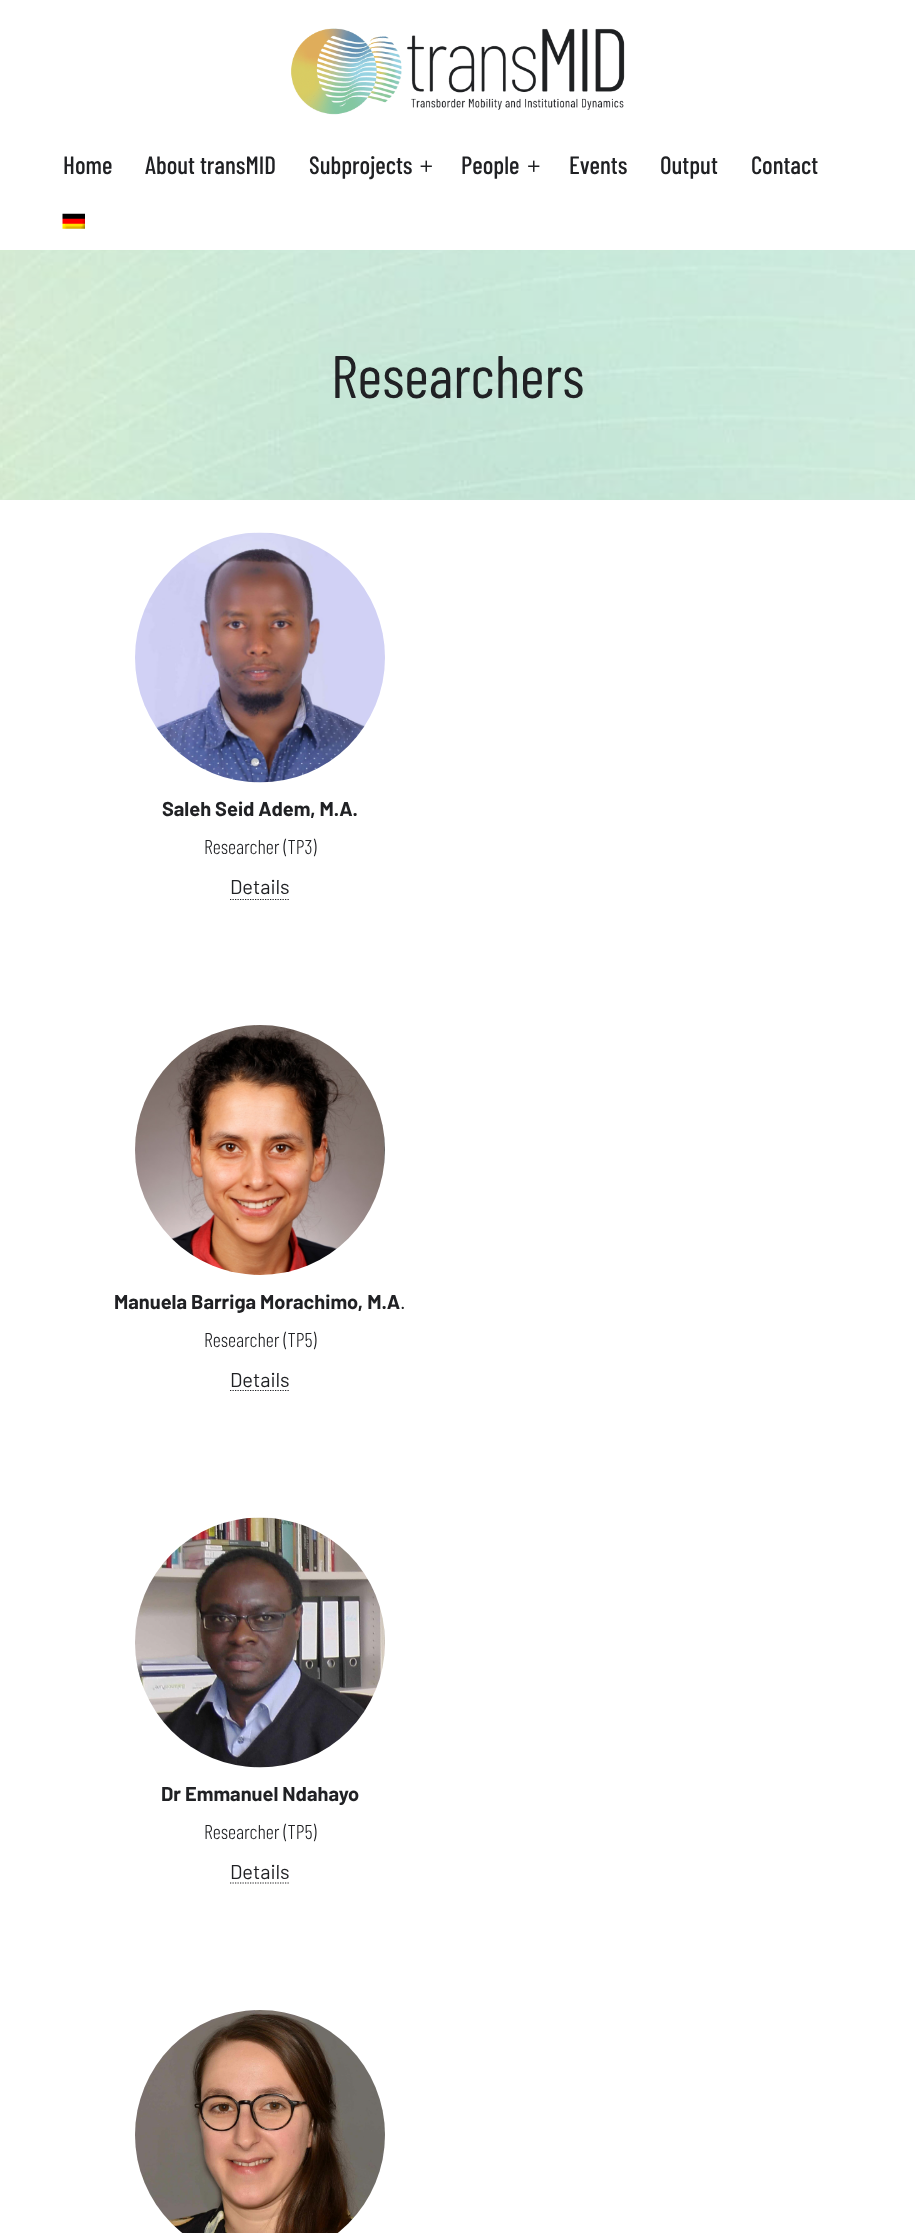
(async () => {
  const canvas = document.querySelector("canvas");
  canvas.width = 915;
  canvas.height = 2233;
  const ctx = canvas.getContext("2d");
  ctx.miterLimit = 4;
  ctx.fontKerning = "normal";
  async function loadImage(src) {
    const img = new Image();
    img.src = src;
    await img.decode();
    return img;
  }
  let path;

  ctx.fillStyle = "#ffffff";
  ctx.fillRect(0, 0, 915, 2233);
  ctx.drawImage(await loadImage("img/1.png"), 291, 28, 334, 87);
  ctx.drawImage(await loadImage("img/2.png"), 420, 160, 12, 12);
  ctx.drawImage(await loadImage("img/3.png"), 528, 160, 12, 12);
  ctx.drawImage(await loadImage("img/4.png"), 62, 213, 23, 16);
  ctx.drawImage(await loadImage("img/5.png"), 0, 250, 915, 250);
  ctx.drawImage(await loadImage("img/6.png"), 135, 532, 250, 251);
  path = new Path2D("M230 899.5H290");
  ctx.strokeStyle = "#202124";
  ctx.lineWidth = 1.2;
  ctx.setLineDash([1.25, 1.25]);
  ctx.stroke(path);
  ctx.drawImage(await loadImage("img/7.png"), 135, 1025, 250, 250);
  path = new Path2D("M230 1390.5H290");
  ctx.stroke(path);
  ctx.drawImage(await loadImage("img/8.png"), 135, 1517, 250, 251);
  path = new Path2D("M230 1883H290");
  ctx.stroke(path);
  ctx.drawImage(await loadImage("img/9.png"), 135, 2010, 250, 223);
  ctx.font = "500 25px Barlow Condensed";
  ctx.fillStyle = "#202124";
  for (const [text, x, y] of [
    ["Home", 63, 174],
    ["About transMID", 145, 174],
    ["Subprojects", 309, 174],
    ["People", 461, 174],
    ["Events", 569, 174],
    ["Output", 660, 174],
    ["Contact", 751, 174],
  ]) {
    ctx.fillText(text, x, y);
  }
  ctx.font = "60px Barlow Condensed";
  ctx.fillText("Researchers", 331, 398);
  ctx.font = "bold 20px Barlow";
  ctx.fillText("Saleh Seid Adem, M.A.", 162, 816);
  ctx.font = "300 20px Barlow Condensed";
  ctx.fillText("Researcher (TP3)", 204, 854);
  ctx.font = "20px Barlow";
  ctx.fillText("Details", 230, 894);
  ctx.font = "bold 20px Barlow";
  ctx.fillText("Manuela Barriga Morachimo, M.A", 114, 1309);
  ctx.font = "20px Barlow";
  ctx.fillText(".", 400, 1309);
  ctx.font = "300 20px Barlow Condensed";
  ctx.fillText("Researcher (TP5)", 204, 1347);
  ctx.font = "20px Barlow";
  ctx.fillText("Details", 230, 1387);
  ctx.font = "bold 20px Barlow";
  ctx.fillText("Dr Emmanuel Ndahayo", 161, 1801);
  ctx.font = "300 20px Barlow Condensed";
  ctx.fillText("Researcher (TP5)", 204, 1839);
  ctx.font = "20px Barlow";
  ctx.fillText("Details", 230, 1879);
})();
